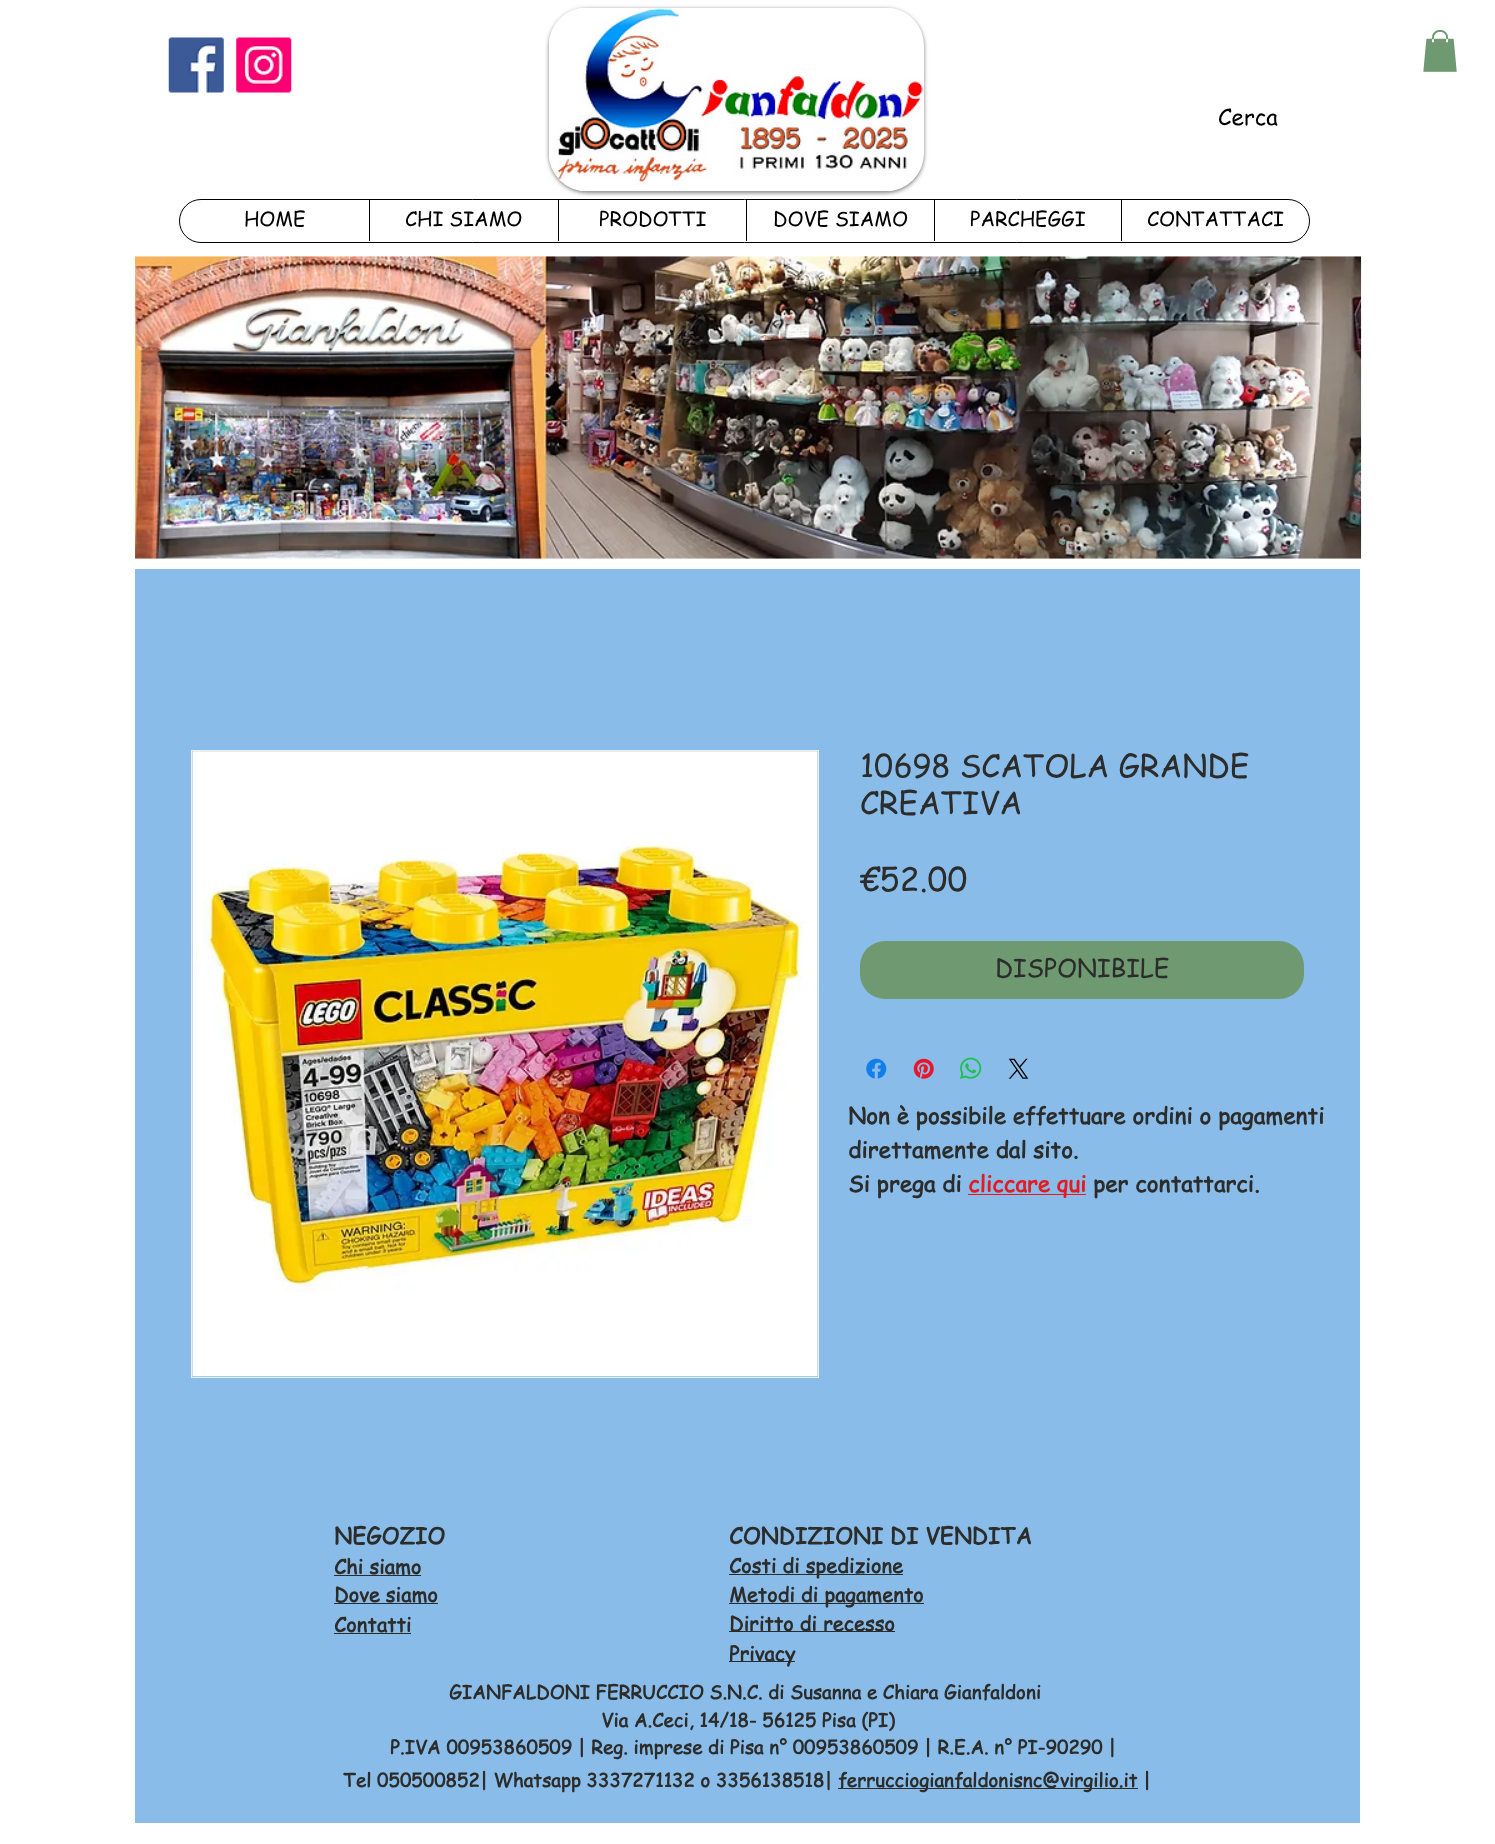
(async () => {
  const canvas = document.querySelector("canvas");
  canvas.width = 1495;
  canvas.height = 1844;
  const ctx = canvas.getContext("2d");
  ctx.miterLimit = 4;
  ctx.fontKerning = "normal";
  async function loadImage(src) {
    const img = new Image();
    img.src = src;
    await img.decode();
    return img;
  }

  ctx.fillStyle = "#ffffff";
  ctx.fillRect(0, 0, 1495, 1844);
  ctx.drawImage(await loadImage("img/1.png"), 168, 37, 56, 56);
  ctx.drawImage(await loadImage("img/2.png"), 236, 37, 56, 56);
  ctx.fillStyle = "rgba(0, 0, 0, 0.5)";
  ctx.filter = "blur(2px)";
  ctx.beginPath();
  ctx.roundRect(549, 9, 375, 184, 38);
  ctx.fill();
  ctx.filter = "none";
  ctx.fillStyle = "#ffffff";
  ctx.beginPath();
  ctx.roundRect(549, 8, 375, 183, 38);
  ctx.fill();
  ctx.drawImage(await loadImage("img/3.png"), 549, 8, 374, 184);
  ctx.drawImage(await loadImage("img/4.png"), 1423, 30, 34, 42);
  ctx.beginPath();
  ctx.roundRect(179.5, 199.5, 1130, 43, 21.5);
  ctx.strokeStyle = "#000000";
  ctx.stroke();
  for (const [x, y, w, h, color] of [
    [369, 200, 1, 41, "#000000"],
    [558, 200, 1, 41, "#000000"],
    [746, 200, 1, 41, "#000000"],
    [934, 200, 1, 41, "#000000"],
    [1121, 200, 1, 41, "#000000"],
  ]) {
    ctx.fillStyle = color;
    ctx.fillRect(x, y, w, h);
  }
  ctx.drawImage(await loadImage("img/5.png"), 135, 256, 1227, 303);
  ctx.fillStyle = "#89bce8";
  ctx.fillRect(135, 569, 1225, 1254);
  ctx.strokeStyle = "#ededec";
  ctx.strokeRect(191.5, 750.5, 627, 627);
  ctx.drawImage(await loadImage("img/6.png"), 192, 751, 626, 626);
  ctx.fillStyle = "#6f9971";
  ctx.beginPath();
  ctx.roundRect(860, 941, 444, 58, 25);
  ctx.fill();
  ctx.drawImage(await loadImage("img/7.png"), 866, 1058, 21, 21);
  ctx.drawImage(await loadImage("img/8.png"), 913, 1058, 21, 21);
  ctx.drawImage(await loadImage("img/9.png"), 960, 1057, 22, 22);
  ctx.drawImage(await loadImage("img/10.png"), 1008, 1058, 21, 21);
  for (const [x, y, w, h, color] of [
    [968, 1194, 118, 1, "#e21c21"],
    [334, 1575, 87, 1, "#2c2c2b"],
    [729, 1574, 174, 1, "#2c2c2b"],
    [334, 1603, 104, 1, "#2c2c2b"],
    [729, 1603, 195, 1, "#2c2c2b"],
    [334, 1633, 77, 1, "#2c2c2b"],
    [729, 1631, 166, 1, "#2c2c2b"],
    [729, 1661, 66, 1, "#2c2c2b"],
    [838, 1788, 300, 1, "#2c2c2b"],
  ]) {
    ctx.fillStyle = color;
    ctx.fillRect(x, y, w, h);
  }
  ctx.font = "22.5px 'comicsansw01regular'";
  ctx.fillStyle = "#000000";
  ctx.fillText("Cerca", 1218, 125);
  ctx.font = "20px 'comicsansw01regular'";
  for (const [text, x, y] of [
    ["HOME", 244, 226],
    ["CHI SIAMO", 405, 226],
    ["PRODOTTI", 599, 226],
    ["DOVE SIAMO", 773, 226],
    ["PARCHEGGI", 970, 226],
    ["CONTATTACI", 1147, 226],
  ]) {
    ctx.fillText(text, x, y);
  }
  ctx.font = "31.25px 'comicsansw01regular'";
  ctx.fillStyle = "#2c2c2b";
  ctx.fillText("10698 SCATOLA GRANDE", 860, 777);
  ctx.fillText("CREATIVA", 860, 814);
  ctx.font = "32.5px 'comicsansw01regular'";
  ctx.fillText("€52.00", 860, 891);
  ctx.font = "25px 'comicsansw01regular'";
  ctx.fillText("DISPONIBILE", 995, 977);
  ctx.font = "bold 22.5px 'comicsansw01regular'";
  for (const [text, x, y] of [
    ["Non è possibile effettuare ordini o pagamenti", 848, 1124],
    ["direttamente dal sito.", 848, 1158],
    ["Si prega di", 848, 1192],
  ]) {
    ctx.fillText(text, x, y);
  }
  ctx.fillStyle = "#e21c21";
  ctx.fillText("cliccare qui", 968, 1192);
  ctx.fillStyle = "#2c2c2b";
  for (const [text, x, y] of [
    ["per contattarci.", 1093, 1192],
    ["NEGOZIO", 334, 1544],
    ["CONDIZIONI DI VENDITA", 729, 1544],
  ]) {
    ctx.fillText(text, x, y);
  }
  ctx.font = "bold 20px 'comicsansw01regular'";
  for (const [text, x, y] of [
    ["Chi siamo", 334, 1574],
    ["Costi di spedizione", 729, 1573],
    ["Dove siamo", 334, 1602],
    ["Metodi di pagamento", 729, 1602],
    ["Contatti", 334, 1632],
    ["Diritto di recesso", 729, 1631],
    ["Privacy", 729, 1661],
  ]) {
    ctx.fillText(text, x, y);
  }
  ctx.font = "bold 18.75px 'comicsansw01regular'";
  for (const [text, x, y] of [
    ["GIANFALDONI FERRUCCIO S.N.C. di Susanna e Chiara Gianfaldoni", 449, 1699],
    ["Via A.Ceci, 14/18- 56125 Pisa (PI)", 601, 1727],
    ["P.IVA 00953860509 | Reg. imprese di Pisa n° 00953860509 | R.E.A. n° PI-90290 |", 390, 1754],
    ["Tel 050500852| Whatsapp 3337271132 o 3356138518|", 343, 1787],
    ["ferrucciogianfaldonisnc@virgilio.it |", 838, 1787],
  ]) {
    ctx.fillText(text, x, y);
  }
})();
